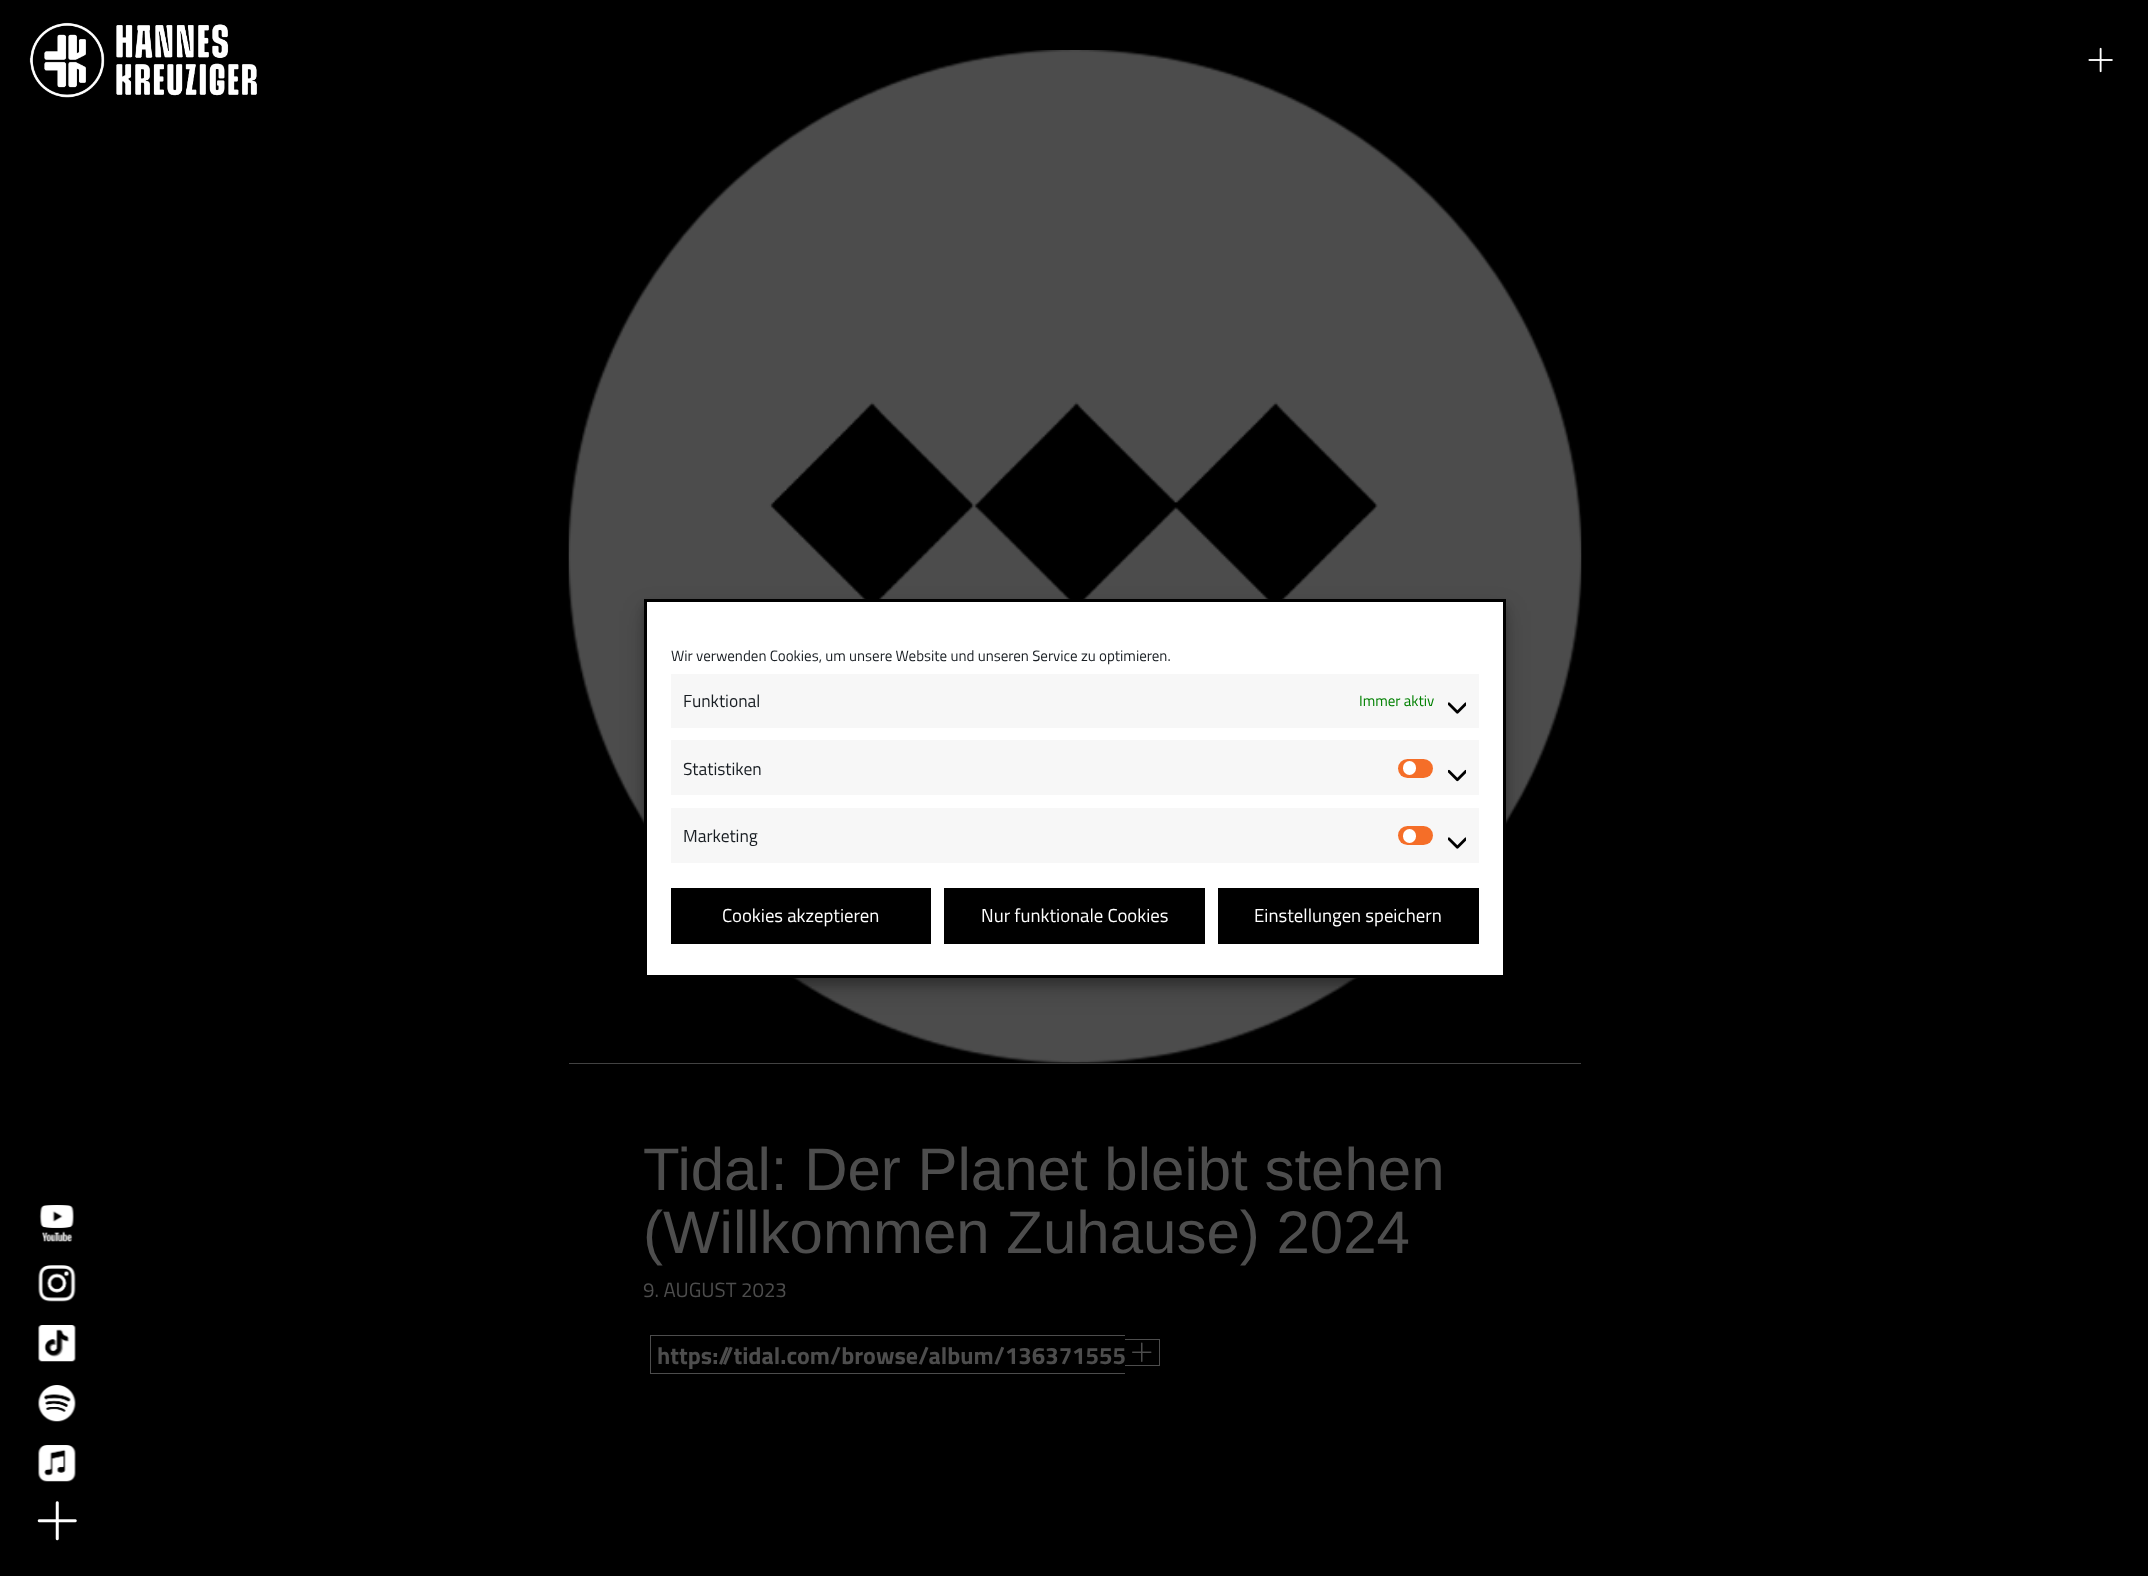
(async () => {
  const canvas = document.querySelector("canvas");
  canvas.width = 2148;
  canvas.height = 1576;
  const ctx = canvas.getContext("2d");
  ctx.miterLimit = 4;
  ctx.fontKerning = "normal";
  async function loadImage(src) {
    const img = new Image();
    img.src = src;
    await img.decode();
    return img;
  }

  ctx.fillStyle = "#000000";
  ctx.fillRect(0, 0, 2148, 1576);
  ctx.drawImage(await loadImage("img/12.png"), 568, 50, 1014, 1013);
  ctx.fillStyle = "rgba(0, 0, 0, 0.23)";
  ctx.filter = "blur(4px)";
  ctx.beginPath();
  ctx.rect(644, 606, 862, 379);
  ctx.fill();
  ctx.filter = "none";
  ctx.fillStyle = "rgba(0, 0, 0, 0.19)";
  ctx.filter = "blur(12.5px)";
  ctx.beginPath();
  ctx.rect(644, 611, 862, 379);
  ctx.fill();
  ctx.filter = "none";
  ctx.fillStyle = "#ffffff";
  ctx.beginPath();
  ctx.rect(645.5, 600.5, 859, 376);
  ctx.fill();
  ctx.strokeStyle = "#000000";
  ctx.lineWidth = 3;
  ctx.stroke();
  ctx.fillStyle = "#f7f7f7";
  ctx.fillRect(671, 674, 808, 54);
  ctx.drawImage(await loadImage("img/1.png"), 1448, 702, 18, 12);
  ctx.fillRect(671, 740, 808, 55);
  ctx.fillStyle = "#f56e28";
  ctx.beginPath();
  ctx.roundRect(1398, 759, 35, 19, 9.5);
  ctx.fill();
  ctx.fillStyle = "#ffffff";
  ctx.beginPath();
  ctx.roundRect(1403, 761, 13, 14, 6.5);
  ctx.fill();
  ctx.drawImage(await loadImage("img/2.png"), 1448, 769, 18, 13);
  ctx.fillStyle = "#f7f7f7";
  ctx.fillRect(671, 808, 808, 55);
  ctx.fillStyle = "#f56e28";
  ctx.beginPath();
  ctx.roundRect(1398, 826, 35, 19, 9.5);
  ctx.fill();
  ctx.fillStyle = "#ffffff";
  ctx.beginPath();
  ctx.roundRect(1403, 829, 13, 14, 6.5);
  ctx.fill();
  ctx.drawImage(await loadImage("img/1.png"), 1448, 837, 18, 12);
  for (const [x, y, w, h, color] of [
    [671, 888, 260, 56, "#000000"],
    [944, 888, 261, 56, "#000000"],
    [1218, 888, 261, 56, "#000000"],
  ]) {
    ctx.fillStyle = color;
    ctx.fillRect(x, y, w, h);
  }
  ctx.drawImage(await loadImage("img/3.png"), 29, 22, 76, 76);
  ctx.drawImage(await loadImage("img/4.png"), 116, 24, 141, 72);
  ctx.drawImage(await loadImage("img/5.png"), 2088, 47, 25, 26);
  ctx.drawImage(await loadImage("img/6.png"), 39, 1205, 35, 37);
  ctx.drawImage(await loadImage("img/7.png"), 38, 1265, 38, 37);
  ctx.drawImage(await loadImage("img/8.png"), 38, 1325, 38, 37);
  ctx.drawImage(await loadImage("img/9.png"), 38, 1385, 38, 37);
  ctx.drawImage(await loadImage("img/10.png"), 38, 1445, 38, 37);
  ctx.drawImage(await loadImage("img/11.png"), 37, 1501, 40, 40);
  for (const [x, y, w, h, color] of [
    [569, 1063, 1012, 1, "#424242"],
    [650, 1335, 475, 1, "#4d4d4d"],
    [650, 1373, 475, 1, "#4d4d4d"],
    [650, 1335, 1, 39, "#4d4d4d"],
    [1125, 1339, 35, 1, "#4d4d4d"],
    [1159, 1339, 1, 27, "#4d4d4d"],
    [1125, 1365, 35, 1, "#4d4d4d"],
  ]) {
    ctx.fillStyle = color;
    ctx.fillRect(x, y, w, h);
  }
  ctx.drawImage(await loadImage("img/13.png"), 1132, 1342, 20, 20);
  ctx.font = "15px Titillium Web";
  ctx.fillStyle = "#191e23";
  ctx.fillText("Wir verwenden Cookies, um unsere Website und unseren Service zu optimieren.", 671, 661);
  ctx.font = "17.5px Titillium Web";
  ctx.fillText("Funktional", 683, 707);
  ctx.font = "15px Titillium Web";
  ctx.fillStyle = "#008000";
  ctx.fillText("Immer aktiv", 1359, 706);
  ctx.font = "17.5px Titillium Web";
  ctx.fillStyle = "#191e23";
  ctx.fillText("Statistiken", 683, 775);
  ctx.fillText("Marketing", 683, 842);
  ctx.font = "18.75px Titillium Web";
  ctx.fillStyle = "#ffffff";
  for (const [text, x, y] of [
    ["Cookies akzeptieren", 722, 922],
    ["Nur funktionale Cookies", 981, 922],
    ["Einstellungen speichern", 1254, 922],
  ]) {
    ctx.fillText(text, x, y);
  }
  ctx.font = "60px Liberation Sans";
  ctx.fillStyle = "#4d4d4d";
  ctx.fillText("Tidal: Der Planet bleibt stehen", 643, 1190);
  ctx.fillText("(Willkommen Zuhause) 2024", 643, 1253);
  ctx.font = "20.5px Titillium Web";
  ctx.fillText("9. AUGUST 2023", 643, 1297);
  ctx.font = "bold 24px Titillium Web";
  ctx.fillText("https://tidal.com/browse/album/136371555", 657, 1364);
})();
